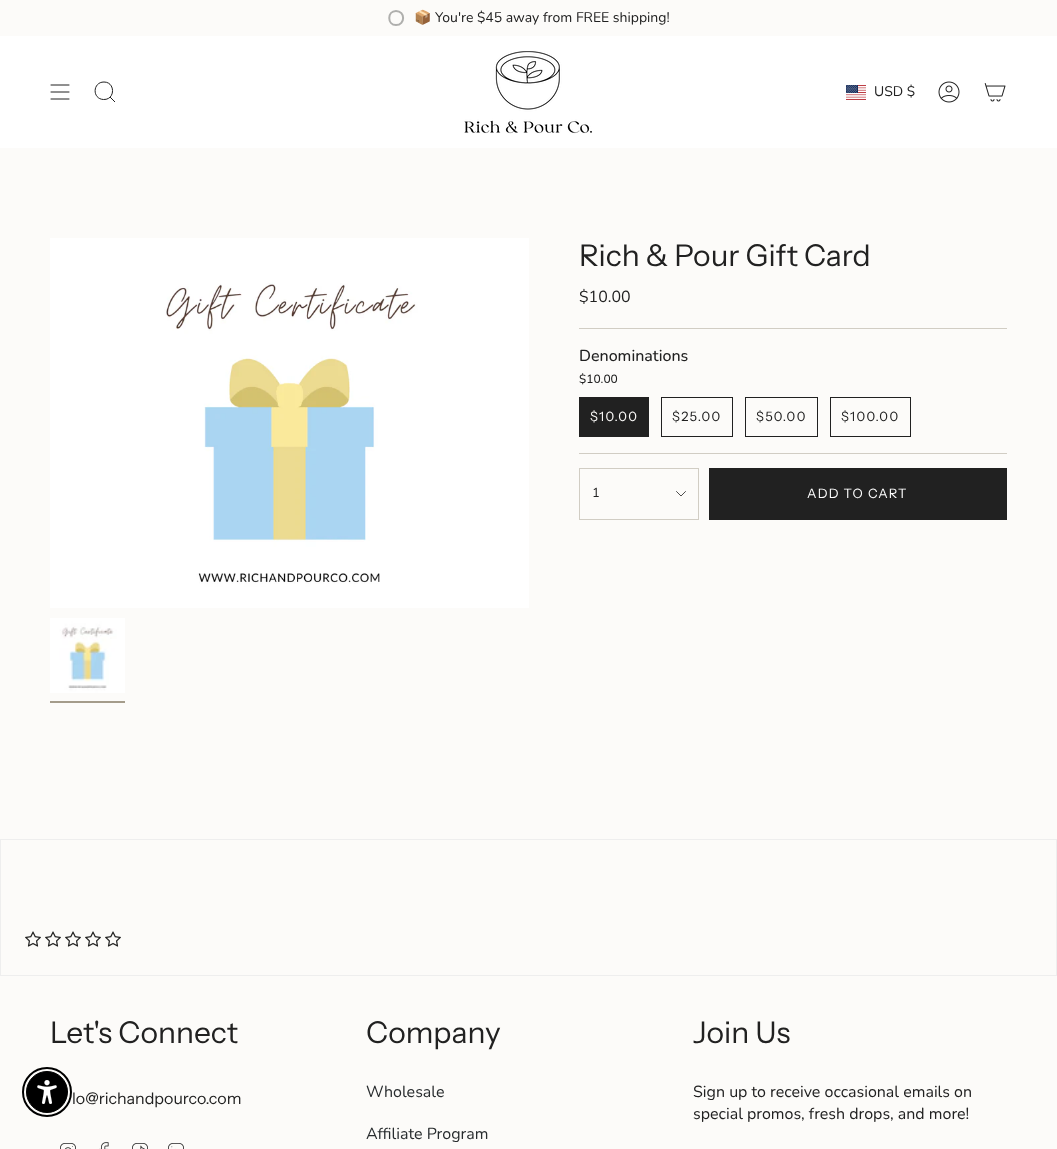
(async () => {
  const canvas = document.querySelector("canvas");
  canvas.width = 1057;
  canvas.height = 1149;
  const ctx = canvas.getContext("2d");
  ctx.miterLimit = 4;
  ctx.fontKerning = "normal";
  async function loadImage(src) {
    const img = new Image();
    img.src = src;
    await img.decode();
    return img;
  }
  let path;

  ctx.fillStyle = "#fcfbf9";
  ctx.fillRect(0, 0, 1057, 1149);
  path = new Path2D("M396 11C387 11 387 25 396 25C405.5 25 405.5 11 396 11Z");
  ctx.strokeStyle = "#afafad";
  ctx.lineWidth = 2;
  ctx.stroke(path);
  ctx.fillStyle = "#ffffff";
  ctx.fillRect(0, 36, 1057, 112);
  path = new Path2D("M51 85H69M51 92H69M51 99H69");
  ctx.strokeStyle = "#212121";
  ctx.lineWidth = 1;
  ctx.lineCap = "round";
  ctx.lineJoin = "round";
  ctx.stroke(path);
  path = new Path2D("M104 82C115.5 82 115.5 100 103.5 99.5C92 99 92.5 82 104 82ZM110 97L115 102");
  ctx.lineCap = "butt";
  ctx.lineJoin = "miter";
  ctx.stroke(path);
  ctx.drawImage(await loadImage("img/1.png"), 464, 51, 128, 83);
  ctx.drawImage(await loadImage("img/2.png"), 846, 85, 20, 15);
  ctx.drawImage(await loadImage("img/3.png"), 938, 81, 22, 22);
  ctx.drawImage(await loadImage("img/4.png"), 984, 83, 22, 19);
  ctx.drawImage(await loadImage("img/5.png"), 50, 238, 479, 370);
  ctx.drawImage(await loadImage("img/6.png"), 50, 618, 75, 75);
  for (const [x, y, w, h, color] of [
    [50, 701, 75, 2, "#a49c8b"],
    [579, 328, 428, 1, "#d1cdc4"],
    [579, 453, 428, 1, "#d1cdc4"],
    [579, 397, 70, 40, "#212121"],
  ]) {
    ctx.fillStyle = color;
    ctx.fillRect(x, y, w, h);
  }
  ctx.strokeRect(661.5, 397.5, 71, 39);
  ctx.strokeRect(745.5, 397.5, 72, 39);
  ctx.strokeRect(830.5, 397.5, 80, 39);
  ctx.strokeStyle = "#d1cdc4";
  ctx.strokeRect(579.5, 468.5, 119, 51);
  path = new Path2D("M676.5 491.5L681 496L685.5 491.5");
  ctx.strokeStyle = "#212121";
  ctx.lineWidth = 0.8;
  ctx.lineCap = "round";
  ctx.lineJoin = "round";
  ctx.stroke(path);
  ctx.fillRect(709, 468, 298, 52);
  ctx.strokeStyle = "#eeeeee";
  ctx.lineWidth = 1;
  ctx.lineJoin = "miter";
  ctx.strokeRect(0.5, 839.5, 1056, 136);
  ctx.drawImage(await loadImage("img/7.png"), 25, 931, 16, 16);
  ctx.drawImage(await loadImage("img/7.png"), 45, 931, 16, 16);
  ctx.drawImage(await loadImage("img/7.png"), 65, 931, 16, 16);
  ctx.drawImage(await loadImage("img/7.png"), 85, 931, 16, 16);
  ctx.drawImage(await loadImage("img/7.png"), 105, 931, 16, 16);
  ctx.beginPath();
  ctx.arc(47, 1092, 24, 0, Math.PI * 2);
  ctx.strokeStyle = "#000000";
  ctx.lineWidth = 2;
  ctx.stroke();
  ctx.fillStyle = "#000000";
  ctx.beginPath();
  ctx.arc(47, 1092, 20.5, 0, Math.PI * 2);
  ctx.fill();
  ctx.lineWidth = 1;
  ctx.stroke();
  ctx.drawImage(await loadImage("img/8.png"), 37, 1080, 20, 24);
  ctx.drawImage(await loadImage("img/9.png"), 60, 1143, 16, 6);
  ctx.drawImage(await loadImage("img/10.png"), 99, 1142, 10, 7);
  ctx.drawImage(await loadImage("img/11.png"), 132, 1143, 16, 6);
  ctx.drawImage(await loadImage("img/12.png"), 168, 1143, 16, 6);
  ctx.font = "14px Noto Color Emoji";
  ctx.fillStyle = "#212121";
  ctx.fillText("📦", 414, 22);
  ctx.font = "14px Nunito";
  ctx.fillText("You're $45 away from FREE shipping!", 435, 22);
  ctx.fillText("USD $", 874, 96);
  ctx.font = "30px Instrument Sans";
  ctx.fillText("Rich & Pour Gift Card", 579, 266);
  ctx.font = "16px Nunito";
  ctx.fillText("$10.00", 579, 302);
  ctx.font = "500 16px Nunito";
  ctx.fillText("Denominations", 579, 361);
  ctx.font = "500 12px Nunito";
  ctx.fillText("$10.00", 579, 383);
  ctx.letterSpacing = "1.25px";
  ctx.font = "13px Instrument Sans";
  ctx.fillStyle = "#fcfbf9";
  ctx.fillText("$10.00", 590, 421);
  ctx.fillStyle = "#212121";
  for (const [text, x, y] of [
    ["$25.00", 672, 421],
    ["$50.00", 756, 421],
    ["$100.00", 841, 421],
  ]) {
    ctx.fillText(text, x, y);
  }
  ctx.letterSpacing = "0px";
  ctx.font = "13px Nunito";
  ctx.fillText("1", 592, 497);
  ctx.letterSpacing = "1.25px";
  ctx.font = "13px Instrument Sans";
  ctx.fillStyle = "#ffffff";
  ctx.fillText("ADD TO CART", 807, 498);
  ctx.fillStyle = "#212121";
  path = new Path2D("M850 494L850.5 493L856.5 499L855.5 499.5Z");
  ctx.fill(path);
  ctx.beginPath();
  ctx.arc(858, 494, 7, 0, Math.PI * 2);
  ctx.strokeStyle = "#212121";
  ctx.stroke();
  ctx.letterSpacing = "0px";
  ctx.font = "30px Instrument Sans";
  ctx.fillText("Let's Connect", 50, 1043);
  ctx.font = "16px Instrument Sans";
  ctx.fillText("lo@richandpourco.com", 72, 1104);
  ctx.font = "30px Instrument Sans";
  ctx.fillText("Company", 366, 1043);
  ctx.font = "16px Nunito";
  ctx.fillStyle = "#282c2e";
  ctx.fillText("Wholesale", 366, 1097);
  ctx.fillText("Affiliate Program", 366, 1139);
  ctx.font = "30px Instrument Sans";
  ctx.fillStyle = "#212121";
  ctx.fillText("Join Us", 693, 1043);
  ctx.font = "16px Nunito";
  ctx.fillText("Sign up to receive occasional emails on", 693, 1097);
  ctx.fillText("special promos, fresh drops, and more!", 693, 1119);
})();
